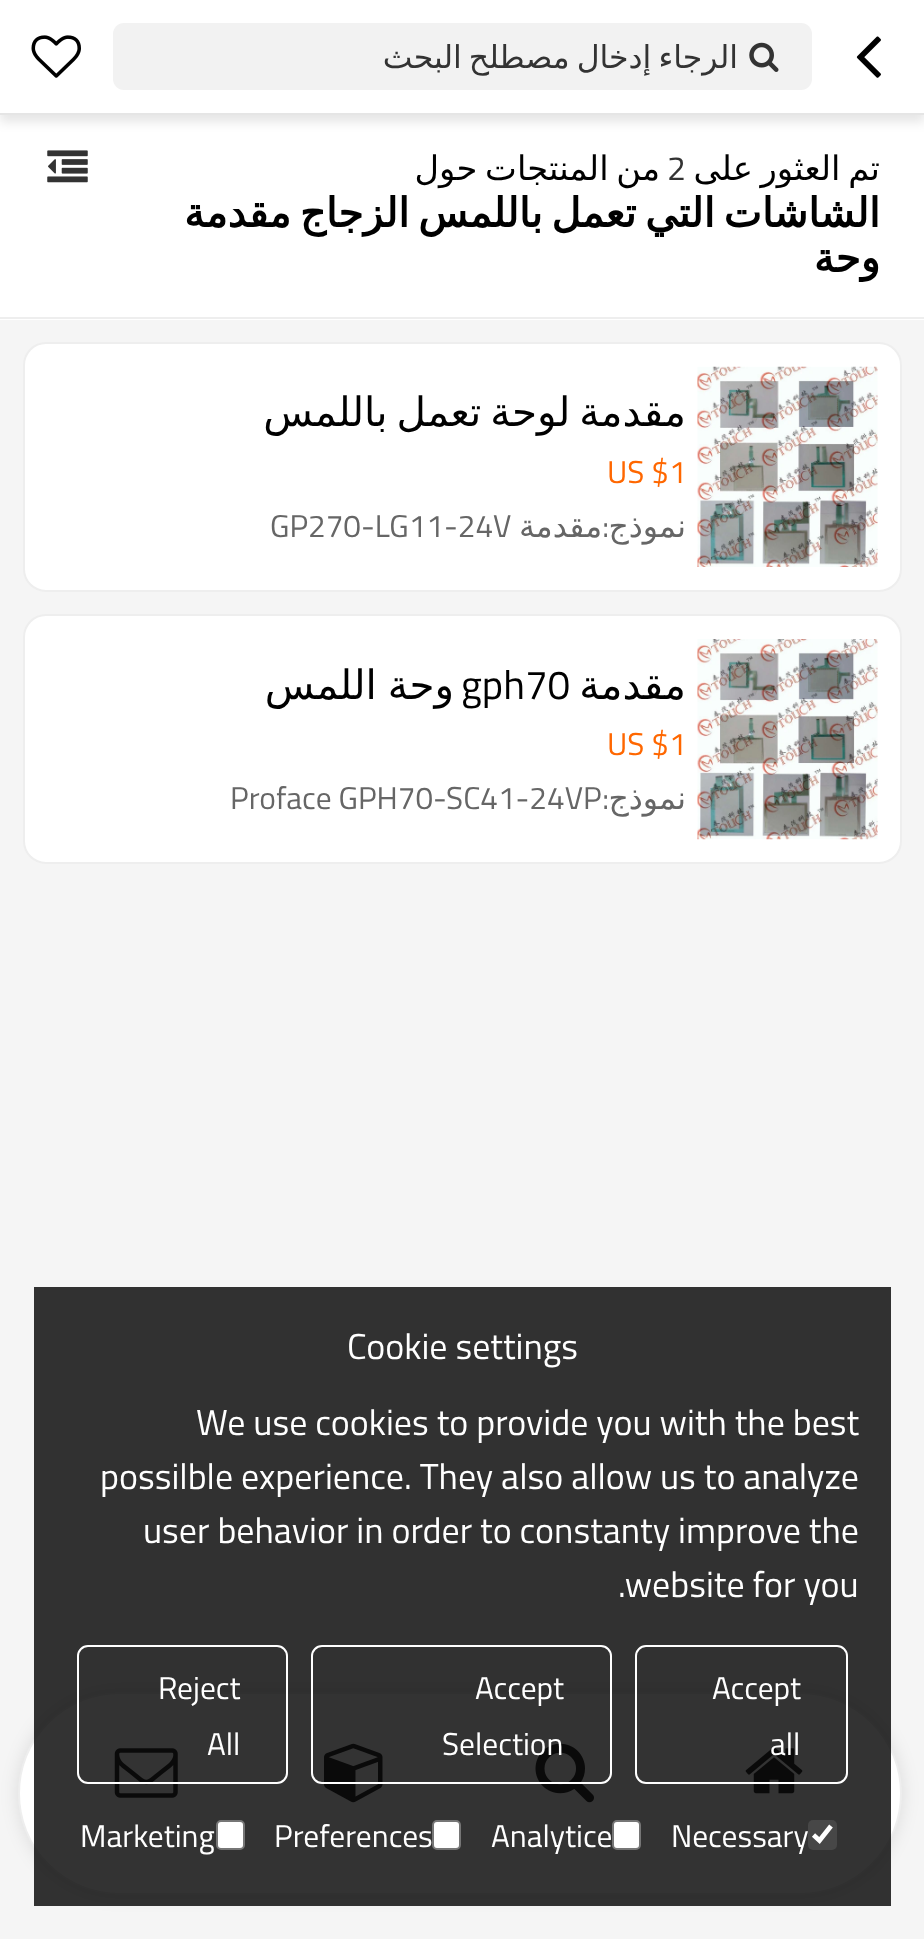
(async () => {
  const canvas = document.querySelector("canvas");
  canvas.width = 924;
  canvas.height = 1939;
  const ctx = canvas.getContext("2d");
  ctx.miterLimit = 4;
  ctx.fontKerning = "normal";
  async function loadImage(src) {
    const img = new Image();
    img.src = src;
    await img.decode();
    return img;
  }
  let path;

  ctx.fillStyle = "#f5f5f5";
  ctx.fillRect(0, 0, 924, 1939);
  ctx.fillStyle = "#ffffff";
  ctx.fillRect(0, 115, 924, 205);
  ctx.fillStyle = "rgba(0, 0, 0, 0.1)";
  ctx.filter = "blur(5.5px)";
  ctx.beginPath();
  ctx.rect(0, 7, 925, 115);
  ctx.fill();
  ctx.filter = "none";
  ctx.fillStyle = "#ffffff";
  ctx.fillRect(0, 0, 924, 113);
  ctx.fillStyle = "#e5e5e5";
  ctx.fillRect(0, 113, 924, 2);
  ctx.drawImage(await loadImage("img/1.png"), 31, 35, 50, 43);
  ctx.fillStyle = "#f2f2f2";
  ctx.beginPath();
  ctx.roundRect(113, 23, 699, 67, 11);
  ctx.fill();
  ctx.drawImage(await loadImage("img/2.png"), 749, 42, 30, 30);
  ctx.drawImage(await loadImage("img/3.png"), 856, 36, 25, 42);
  ctx.fillStyle = "#eeeeee";
  ctx.fillRect(0, 317, 924, 2);
  ctx.drawImage(await loadImage("img/4.png"), 47, 150, 41, 33);
  ctx.fillStyle = "#ffffff";
  ctx.beginPath();
  ctx.roundRect(24, 343, 877, 248, 22);
  ctx.fill();
  ctx.strokeStyle = "#eeeeee";
  ctx.lineWidth = 2;
  ctx.stroke();
  ctx.drawImage(await loadImage("img/5.png"), 697, 366, 181, 201);
  ctx.beginPath();
  ctx.roundRect(24, 615, 877, 248, 22);
  ctx.fill();
  ctx.stroke();
  ctx.drawImage(await loadImage("img/6.png"), 697, 639, 181, 201);
  ctx.fillStyle = "rgba(0, 0, 0, 0.1)";
  ctx.filter = "blur(9px)";
  ctx.beginPath();
  ctx.roundRect(18, 1692, 884, 203, 101.5);
  ctx.fill();
  ctx.filter = "none";
  ctx.fillStyle = "#ffffff";
  ctx.beginPath();
  ctx.roundRect(19, 1693, 882, 201, 100.5);
  ctx.fill();
  ctx.stroke();
  ctx.drawImage(await loadImage("img/7.png"), 114, 1748, 64, 50);
  ctx.drawImage(await loadImage("img/8.png"), 324, 1743, 59, 60);
  ctx.drawImage(await loadImage("img/9.png"), 535, 1743, 59, 60);
  ctx.drawImage(await loadImage("img/10.png"), 745, 1748, 58, 46);
  ctx.fillStyle = "rgba(0, 0, 0, 0.8)";
  ctx.fillRect(34, 1287, 857, 619);
  ctx.beginPath();
  ctx.roundRect(78, 1646, 209, 137, 10);
  ctx.strokeStyle = "#ffffff";
  ctx.stroke();
  ctx.beginPath();
  ctx.roundRect(312, 1646, 299, 137, 10);
  ctx.stroke();
  ctx.beginPath();
  ctx.roundRect(636, 1646, 211, 137, 10);
  ctx.stroke();
  ctx.fillStyle = "#ffffff";
  ctx.beginPath();
  ctx.roundRect(217, 1821, 27, 28, 4);
  ctx.fill();
  ctx.strokeStyle = "#767676";
  ctx.stroke();
  ctx.beginPath();
  ctx.roundRect(433, 1821, 27, 28, 4);
  ctx.fill();
  ctx.stroke();
  ctx.beginPath();
  ctx.roundRect(613, 1821, 27, 28, 4);
  ctx.fill();
  ctx.stroke();
  ctx.fillStyle = "#474747";
  ctx.beginPath();
  ctx.roundRect(808, 1820, 29, 30, 5);
  ctx.fill();
  path = new Path2D("M813.5 1835L819.5 1840.5L831 1826");
  ctx.strokeStyle = "#ffffff";
  ctx.lineWidth = 4.7;
  ctx.stroke(path);
  ctx.wordSpacing = "-3px";
  ctx.direction = "rtl";
  ctx.font = "31.5px DejaVu Sans";
  ctx.fillStyle = "#333333";
  ctx.fillText("الرجاء إدخال مصطلح البحث", 738, 68);
  ctx.font = "33.75px DejaVu Sans";
  ctx.fillStyle = "#000000";
  ctx.fillText("من المنتجات حول", 660, 180);
  ctx.wordSpacing = "0px";
  ctx.direction = "ltr";
  ctx.font = "33.75px Titillium Web";
  ctx.fillStyle = "#333333";
  ctx.fillText("2", 667, 180);
  ctx.wordSpacing = "-3px";
  ctx.direction = "rtl";
  ctx.font = "33.75px DejaVu Sans";
  ctx.fillStyle = "#000000";
  ctx.fillText("تم العثور على", 880, 180);
  ctx.wordSpacing = "-4px";
  ctx.font = "bold 40.5px DejaVu Sans";
  ctx.fillText("الشاشات التي تعمل باللمس الزجاج مقدمة", 880, 227);
  ctx.wordSpacing = "0px";
  ctx.fillText("وحة", 880, 272);
  ctx.save();
  ctx.beginPath();
  ctx.rect(59, 389, 627, 50);
  ctx.clip();
  ctx.wordSpacing = "-4px";
  ctx.font = "40.5px DejaVu Sans";
  ctx.fillText("مقدمة لوحة تعمل باللمس", 686, 426);
  ctx.restore();
  ctx.direction = "ltr";
  ctx.font = "31.5px Titillium Web";
  ctx.fillStyle = "#ff6700";
  ctx.fillText("US $1", 607, 483);
  ctx.fillStyle = "#666666";
  ctx.fillText("GP270-LG11-24V", 270, 537);
  ctx.direction = "rtl";
  ctx.font = "31.5px DejaVu Sans";
  ctx.fillText("مقدمة", 602, 537);
  ctx.font = "31.5px Titillium Web";
  ctx.fillText(":", 609, 537);
  ctx.font = "31.5px DejaVu Sans";
  ctx.fillText("نموذج", 686, 537);
  ctx.wordSpacing = "-2px";
  ctx.font = "40.5px DejaVu Sans";
  ctx.fillStyle = "#000000";
  ctx.fillText("وحة اللمس", 454, 699);
  ctx.wordSpacing = "0px";
  ctx.direction = "ltr";
  ctx.font = "40.5px Titillium Web";
  ctx.fillText("gph70", 461, 699);
  ctx.direction = "rtl";
  ctx.font = "40.5px DejaVu Sans";
  ctx.fillText("مقدمة", 686, 699);
  ctx.direction = "ltr";
  ctx.font = "31.5px Titillium Web";
  ctx.fillStyle = "#ff6700";
  ctx.fillText("US $1", 607, 755);
  ctx.fillStyle = "#666666";
  ctx.fillText("Proface GPH70-SC41-24VP", 230, 809);
  ctx.direction = "rtl";
  ctx.fillText(":", 609, 809);
  ctx.font = "31.5px DejaVu Sans";
  ctx.fillText("نموذج", 686, 809);
  ctx.direction = "ltr";
  ctx.font = "36px Titillium Web";
  ctx.fillStyle = "#ffffff";
  for (const [text, x, y] of [
    ["Cookie settings", 347, 1359],
    ["We use cookies to provide you with the best", 196, 1435],
    ["possilble experience. They also allow us to analyze", 100, 1489],
    ["user behavior in order to constanty improve the", 143, 1543],
    [".website for you", 618, 1597],
  ]) {
    ctx.fillText(text, x, y);
  }
  ctx.font = "31.5px Titillium Web";
  for (const [text, x, y] of [
    ["Reject", 158, 1699],
    ["All", 207, 1755],
    ["Accept", 475, 1699],
    ["Selection", 442, 1755],
    ["Accept", 712, 1699],
    ["all", 770, 1755],
    ["Marketing", 80, 1847],
    ["Preferences", 274, 1847],
    ["Analytice", 491, 1847],
    ["Necessary", 671, 1847],
  ]) {
    ctx.fillText(text, x, y);
  }
})();
